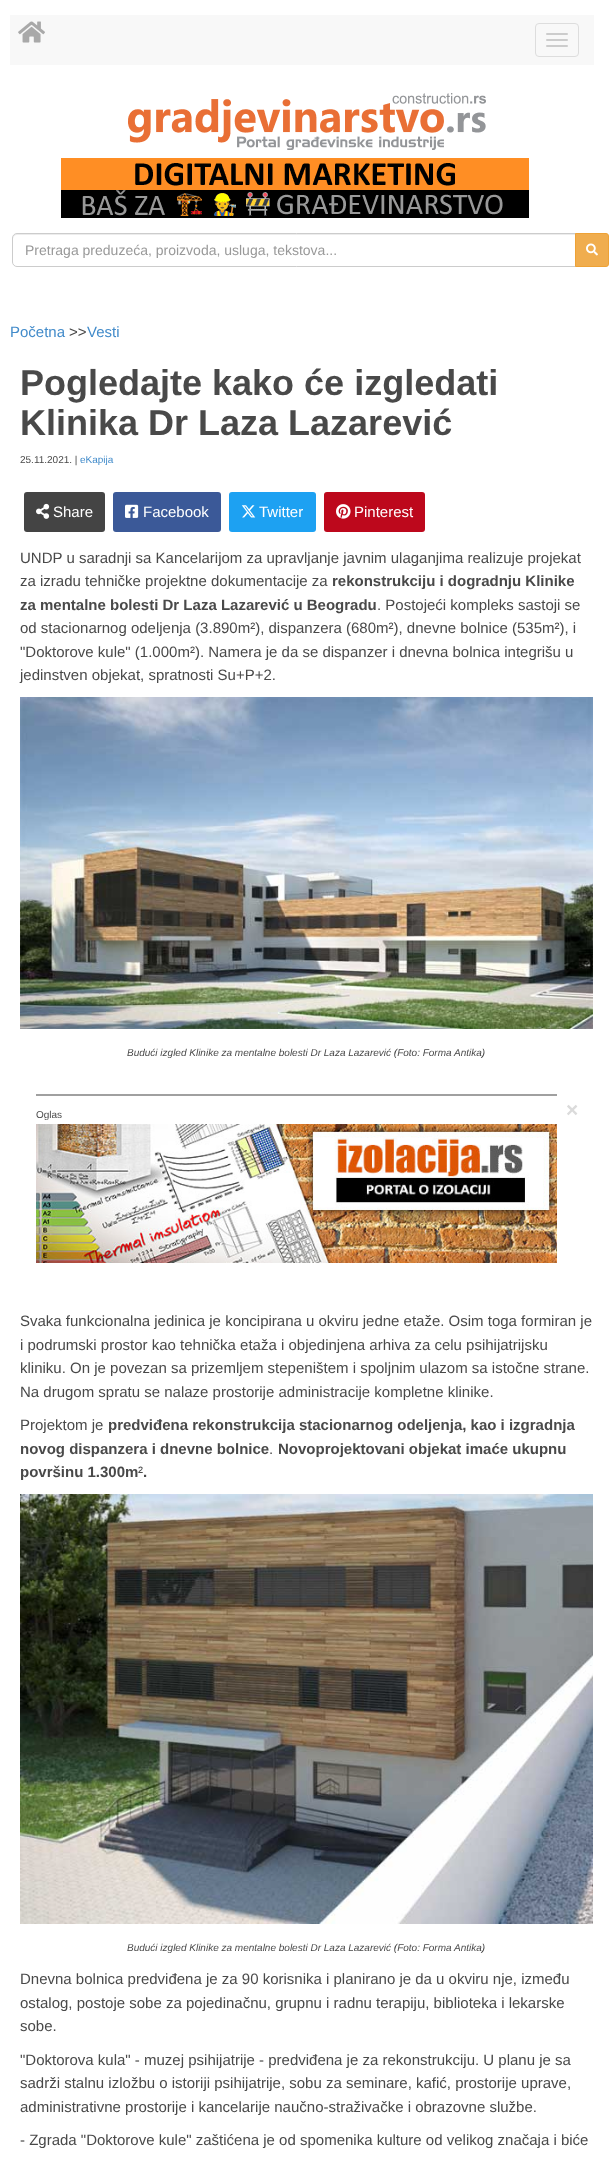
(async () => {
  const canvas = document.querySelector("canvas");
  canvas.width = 613;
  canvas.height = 2160;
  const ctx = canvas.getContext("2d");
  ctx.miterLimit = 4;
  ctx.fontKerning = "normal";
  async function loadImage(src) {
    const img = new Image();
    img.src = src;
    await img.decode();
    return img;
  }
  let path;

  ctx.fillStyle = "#ffffff";
  ctx.fillRect(0, 0, 613, 2160);
  ctx.fillStyle = "#f8f8f8";
  ctx.fillRect(10, 15, 584, 50);
  ctx.drawImage(await loadImage("img/1.png"), 18, 21, 27, 22);
  ctx.beginPath();
  ctx.roundRect(535.5, 23.5, 43, 33, 3.5);
  ctx.strokeStyle = "#dddddd";
  ctx.stroke();
  ctx.fillStyle = "#cccccc";
  ctx.beginPath();
  ctx.roundRect(546, 33, 22, 2, 1);
  ctx.fill();
  ctx.beginPath();
  ctx.roundRect(546, 39, 22, 2, 1);
  ctx.fill();
  ctx.beginPath();
  ctx.roundRect(546, 45, 22, 2, 1);
  ctx.fill();
  ctx.drawImage(await loadImage("img/2.png"), 128, 93, 358, 57);
  ctx.drawImage(await loadImage("img/3.png"), 61, 158, 468, 60);
  ctx.fillStyle = "#ececec";
  path = new Path2D("M17 235H575V234H17C14 234 13 236 13 239C13 237 15 235 17 235Z");
  ctx.fill(path);
  ctx.beginPath();
  ctx.roundRect(12.5, 233.5, 563, 33, [4.5, 0, 0, 4.5]);
  ctx.strokeStyle = "#cccccc";
  ctx.stroke();
  ctx.fillStyle = "#f0ad4e";
  ctx.beginPath();
  ctx.roundRect(575.5, 233.5, 33, 33, [0, 2.5, 2.5, 0]);
  ctx.fill();
  ctx.strokeStyle = "#eea236";
  ctx.stroke();
  ctx.drawImage(await loadImage("img/4.png"), 586, 243, 12, 13);
  ctx.fillStyle = "#444444";
  ctx.beginPath();
  ctx.roundRect(24, 492, 81, 40, 3);
  ctx.fill();
  ctx.drawImage(await loadImage("img/5.png"), 36, 503, 14, 16);
  ctx.fillStyle = "#3b5998";
  ctx.beginPath();
  ctx.roundRect(113, 492, 108, 40, 3);
  ctx.fill();
  ctx.drawImage(await loadImage("img/6.png"), 125, 504, 14, 14);
  ctx.fillStyle = "#1da1f2";
  ctx.beginPath();
  ctx.roundRect(229, 492, 87, 40, 3);
  ctx.fill();
  ctx.drawImage(await loadImage("img/7.png"), 241, 505, 15, 13);
  ctx.fillStyle = "#bd081c";
  ctx.beginPath();
  ctx.roundRect(324, 492, 101, 40, 3);
  ctx.fill();
  ctx.drawImage(await loadImage("img/8.png"), 336, 504, 15, 15);
  ctx.drawImage(await loadImage("img/9.png"), 20, 697, 573, 332);
  ctx.fillStyle = "#a0a0a0";
  ctx.fillRect(36, 1094, 521, 2);
  ctx.drawImage(await loadImage("img/10.png"), 36, 1124, 521, 139);
  ctx.drawImage(await loadImage("img/11.png"), 20, 1494, 573, 430);
  ctx.font = "14px Liberation Sans";
  ctx.fillStyle = "#999999";
  ctx.fillText("Pretraga preduzeća, proizvoda, usluga, tekstova...", 25, 255);
  ctx.font = "15px Liberation Sans";
  ctx.fillStyle = "#428bca";
  ctx.fillText("Početna", 10, 337);
  ctx.fillStyle = "#494949";
  ctx.fillText(">>", 69, 337);
  ctx.fillStyle = "#428bca";
  ctx.fillText("Vesti", 87, 337);
  ctx.font = "bold 36px Liberation Sans";
  ctx.fillStyle = "#494949";
  ctx.fillText("Pogledajte kako će izgledati", 20, 395);
  ctx.fillText("Klinika Dr Laza Lazarević", 20, 435);
  ctx.font = "10px Liberation Sans";
  ctx.fillText("25.11.2021. |", 20, 463);
  ctx.fillStyle = "#428bca";
  ctx.fillText("eKapija", 80, 463);
  ctx.font = "15px Liberation Sans";
  ctx.fillStyle = "#ffffff";
  for (const [text, x, y] of [
    ["Share", 53, 517],
    ["Facebook", 143, 517],
    ["Twitter", 259, 517],
    ["Pinterest", 354, 517],
  ]) {
    ctx.fillText(text, x, y);
  }
  ctx.fillStyle = "#494949";
  ctx.fillText("UNDP u saradnji sa Kancelarijom za upravljanje javnim ulaganjima realizuje projekat", 20, 563);
  ctx.fillText("za izradu tehničke projektne dokumentacije za", 20, 586);
  ctx.font = "bold 15px Liberation Sans";
  ctx.fillText("rekonstrukciju i dogradnju Klinike", 332, 586);
  ctx.fillText("za mentalne bolesti Dr Laza Lazarević u Beogradu", 20, 610);
  ctx.font = "15px Liberation Sans";
  for (const [text, x, y] of [
    [". Postojeći kompleks sastoji se", 377, 610],
    ["od stacionarnog odeljenja (3.890m²), dispanzera (680m²), dnevne bolnice (535m²), i", 20, 633],
    ["\"Doktorove kule\" (1.000m²). Namera je da se dispanzer i dnevna bolnica integrišu u", 20, 657],
    ["jedinstven objekat, spratnosti Su+P+2.", 20, 680],
  ]) {
    ctx.fillText(text, x, y);
  }
  ctx.font = "italic 10px Liberation Sans";
  ctx.fillText("Budući izgled Klinike za mentalne bolesti Dr Laza Lazarević (Foto: Forma Antika)", 127, 1056);
  ctx.font = "10px Liberation Sans";
  ctx.fillText("Oglas", 36, 1118);
  ctx.font = "bold 21px Liberation Sans";
  ctx.fillStyle = "#dbdbdb";
  ctx.fillText("×", 566, 1117);
  ctx.font = "15px Liberation Sans";
  ctx.fillStyle = "#494949";
  for (const [text, x, y] of [
    ["Svaka funkcionalna jedinica je koncipirana u okviru jedne etaže. Osim toga formiran je", 20, 1326],
    ["i podrumski prostor kao tehnička etaža i objedinjena arhiva za celu psihijatrijsku", 20, 1350],
    ["kliniku. On je povezan sa prizemljem stepeništem i spoljnim ulazom sa istočne strane.", 20, 1373],
    ["Na drugom spratu se nalaze prostorije administracije kompletne klinike.", 20, 1397],
    ["Projektom je", 20, 1430],
  ]) {
    ctx.fillText(text, x, y);
  }
  ctx.font = "bold 15px Liberation Sans";
  ctx.fillText("predviđena rekonstrukcija stacionarnog odeljenja, kao i izgradnja", 108, 1430);
  ctx.fillText("novog dispanzera i dnevne bolnice", 20, 1454);
  ctx.font = "15px Liberation Sans";
  ctx.fillText(".", 269, 1454);
  ctx.font = "bold 15px Liberation Sans";
  ctx.fillText("Novoprojektovani objekat imaće ukupnu", 278, 1454);
  ctx.fillText("površinu 1.300m", 20, 1477);
  ctx.font = "15px Liberation Sans";
  ctx.fillText("²", 138, 1477);
  ctx.font = "bold 15px Liberation Sans";
  ctx.fillText(".", 143, 1477);
  ctx.font = "italic 10px Liberation Sans";
  ctx.fillText("Budući izgled Klinike za mentalne bolesti Dr Laza Lazarević (Foto: Forma Antika)", 127, 1951);
  ctx.font = "15px Liberation Sans";
  for (const [text, x, y] of [
    ["Dnevna bolnica predviđena je za 90 korisnika i planirano je da u okviru nje, između", 20, 1984],
    ["ostalog, postoje sobe za pojedinačnu, grupnu i radnu terapiju, biblioteka i lekarske", 20, 2008],
    ["sobe.", 20, 2031],
    ["\"Doktorova kula\" - muzej psihijatrije - predviđena je za rekonstrukciju. U planu je sa", 20, 2065],
    ["sadrži stalnu izložbu o istoriji psihijatrije, sobu za seminare, kafić, prostorije uprave,", 20, 2088],
    ["administrativne prostorije i kancelarije naučno-straživačke i obrazovne službe.", 20, 2112],
    ["- Zgrada \"Doktorove kule\" zaštićena je od spomenika kulture od velikog značaja i biće", 20, 2145],
  ]) {
    ctx.fillText(text, x, y);
  }
})();
